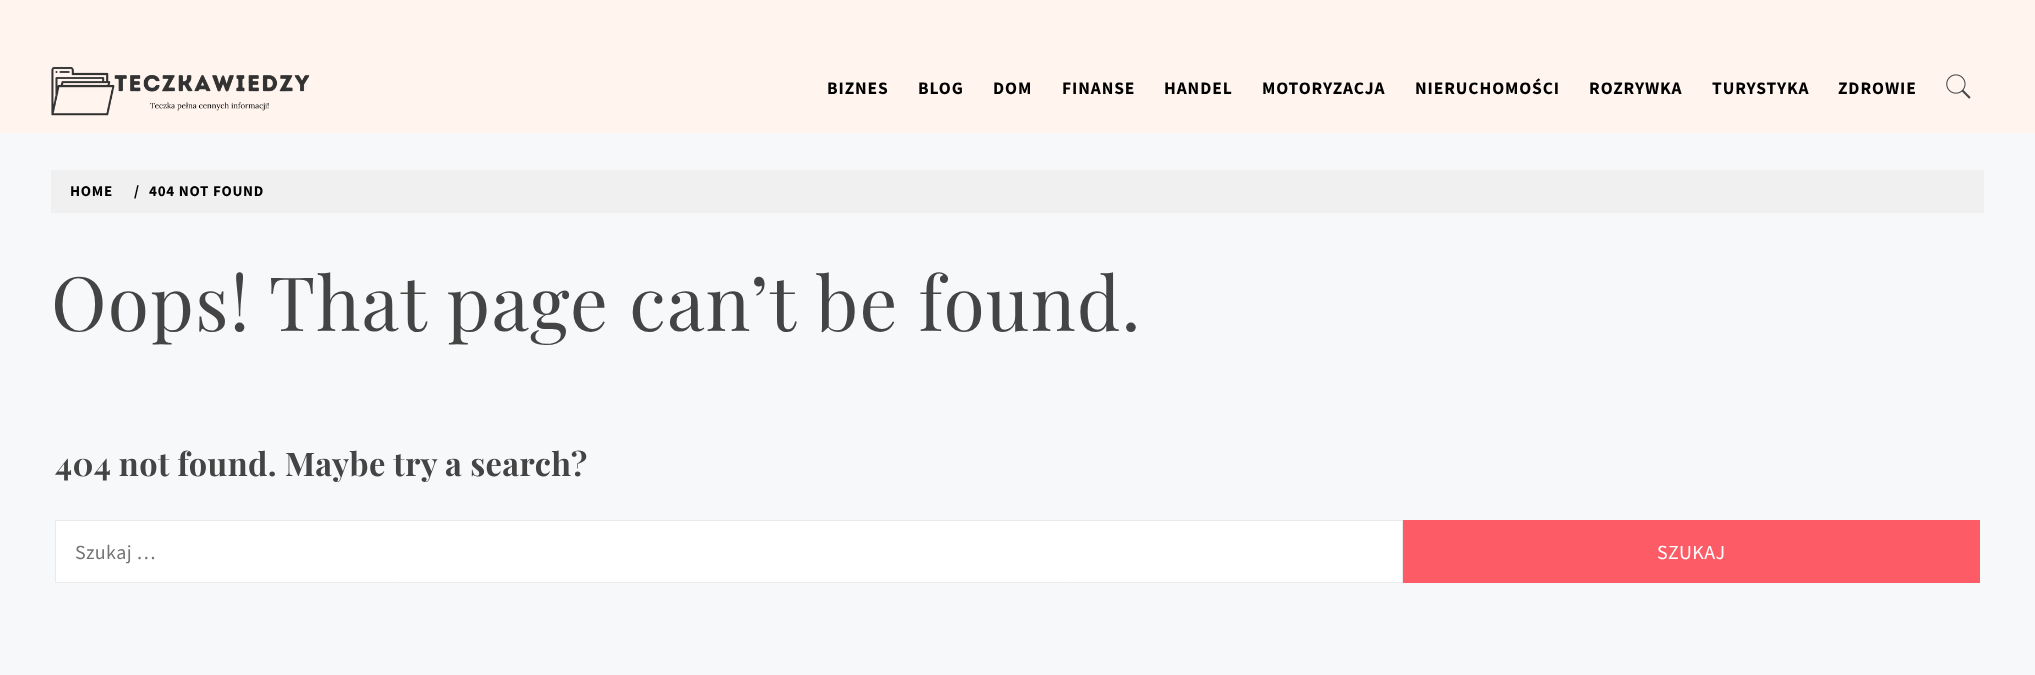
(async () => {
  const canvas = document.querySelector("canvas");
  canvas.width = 2035;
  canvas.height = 675;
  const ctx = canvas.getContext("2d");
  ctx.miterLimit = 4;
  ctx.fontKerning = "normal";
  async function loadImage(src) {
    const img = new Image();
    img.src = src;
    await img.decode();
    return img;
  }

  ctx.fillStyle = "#f6f8f9";
  ctx.fillRect(0, 0, 2035, 675);
  ctx.fillStyle = "#fff4ee";
  ctx.fillRect(0, 0, 2035, 133);
  ctx.drawImage(await loadImage("img/1.png"), 51, 66, 259, 50);
  ctx.drawImage(await loadImage("img/2.png"), 1946, 74, 25, 25);
  ctx.fillStyle = "#f0f0f0";
  ctx.fillRect(51, 170, 1933, 43);
  ctx.fillStyle = "#ffffff";
  ctx.beginPath();
  ctx.rect(55.5, 520.5, 1347, 62);
  ctx.fill();
  ctx.strokeStyle = "#eaeaea";
  ctx.stroke();
  ctx.fillStyle = "#fd5b66";
  ctx.fillRect(1403, 520, 577, 63);
  ctx.letterSpacing = "0.9px";
  ctx.font = "bold 17.5px Source Sans Pro";
  ctx.fillStyle = "#000000";
  for (const [text, x, y] of [
    ["BIZNES", 827, 94],
    ["BLOG", 918, 94],
    ["DOM", 993, 94],
    ["FINANSE", 1062, 94],
    ["HANDEL", 1164, 94],
    ["MOTORYZACJA", 1262, 94],
    ["NIERUCHOMOŚCI", 1415, 94],
    ["ROZRYWKA", 1589, 94],
    ["TURYSTYKA", 1712, 94],
    ["ZDROWIE", 1838, 94],
  ]) {
    ctx.fillText(text, x, y);
  }
  ctx.letterSpacing = "0.75px";
  ctx.font = "bold 15px Source Sans Pro";
  for (const [text, x, y] of [
    ["HOME", 70, 196],
    ["/", 134, 196],
    ["404 NOT FOUND", 149, 196],
  ]) {
    ctx.fillText(text, x, y);
  }
  ctx.letterSpacing = "1.25px";
  ctx.font = "75px Playfair Display";
  ctx.fillStyle = "#444444";
  ctx.fillText("Oops! That page can’t be found.", 51, 331);
  ctx.letterSpacing = "0.4px";
  ctx.font = "bold 32.5px Playfair Display";
  ctx.fillText("404 not found. Maybe try a search?", 55, 476);
  ctx.font = "20px Source Sans Pro";
  ctx.fillStyle = "#757575";
  ctx.fillText("Szukaj …", 75, 559);
  ctx.fillStyle = "#ffffff";
  ctx.fillText("SZUKAJ", 1657, 559);
})();
